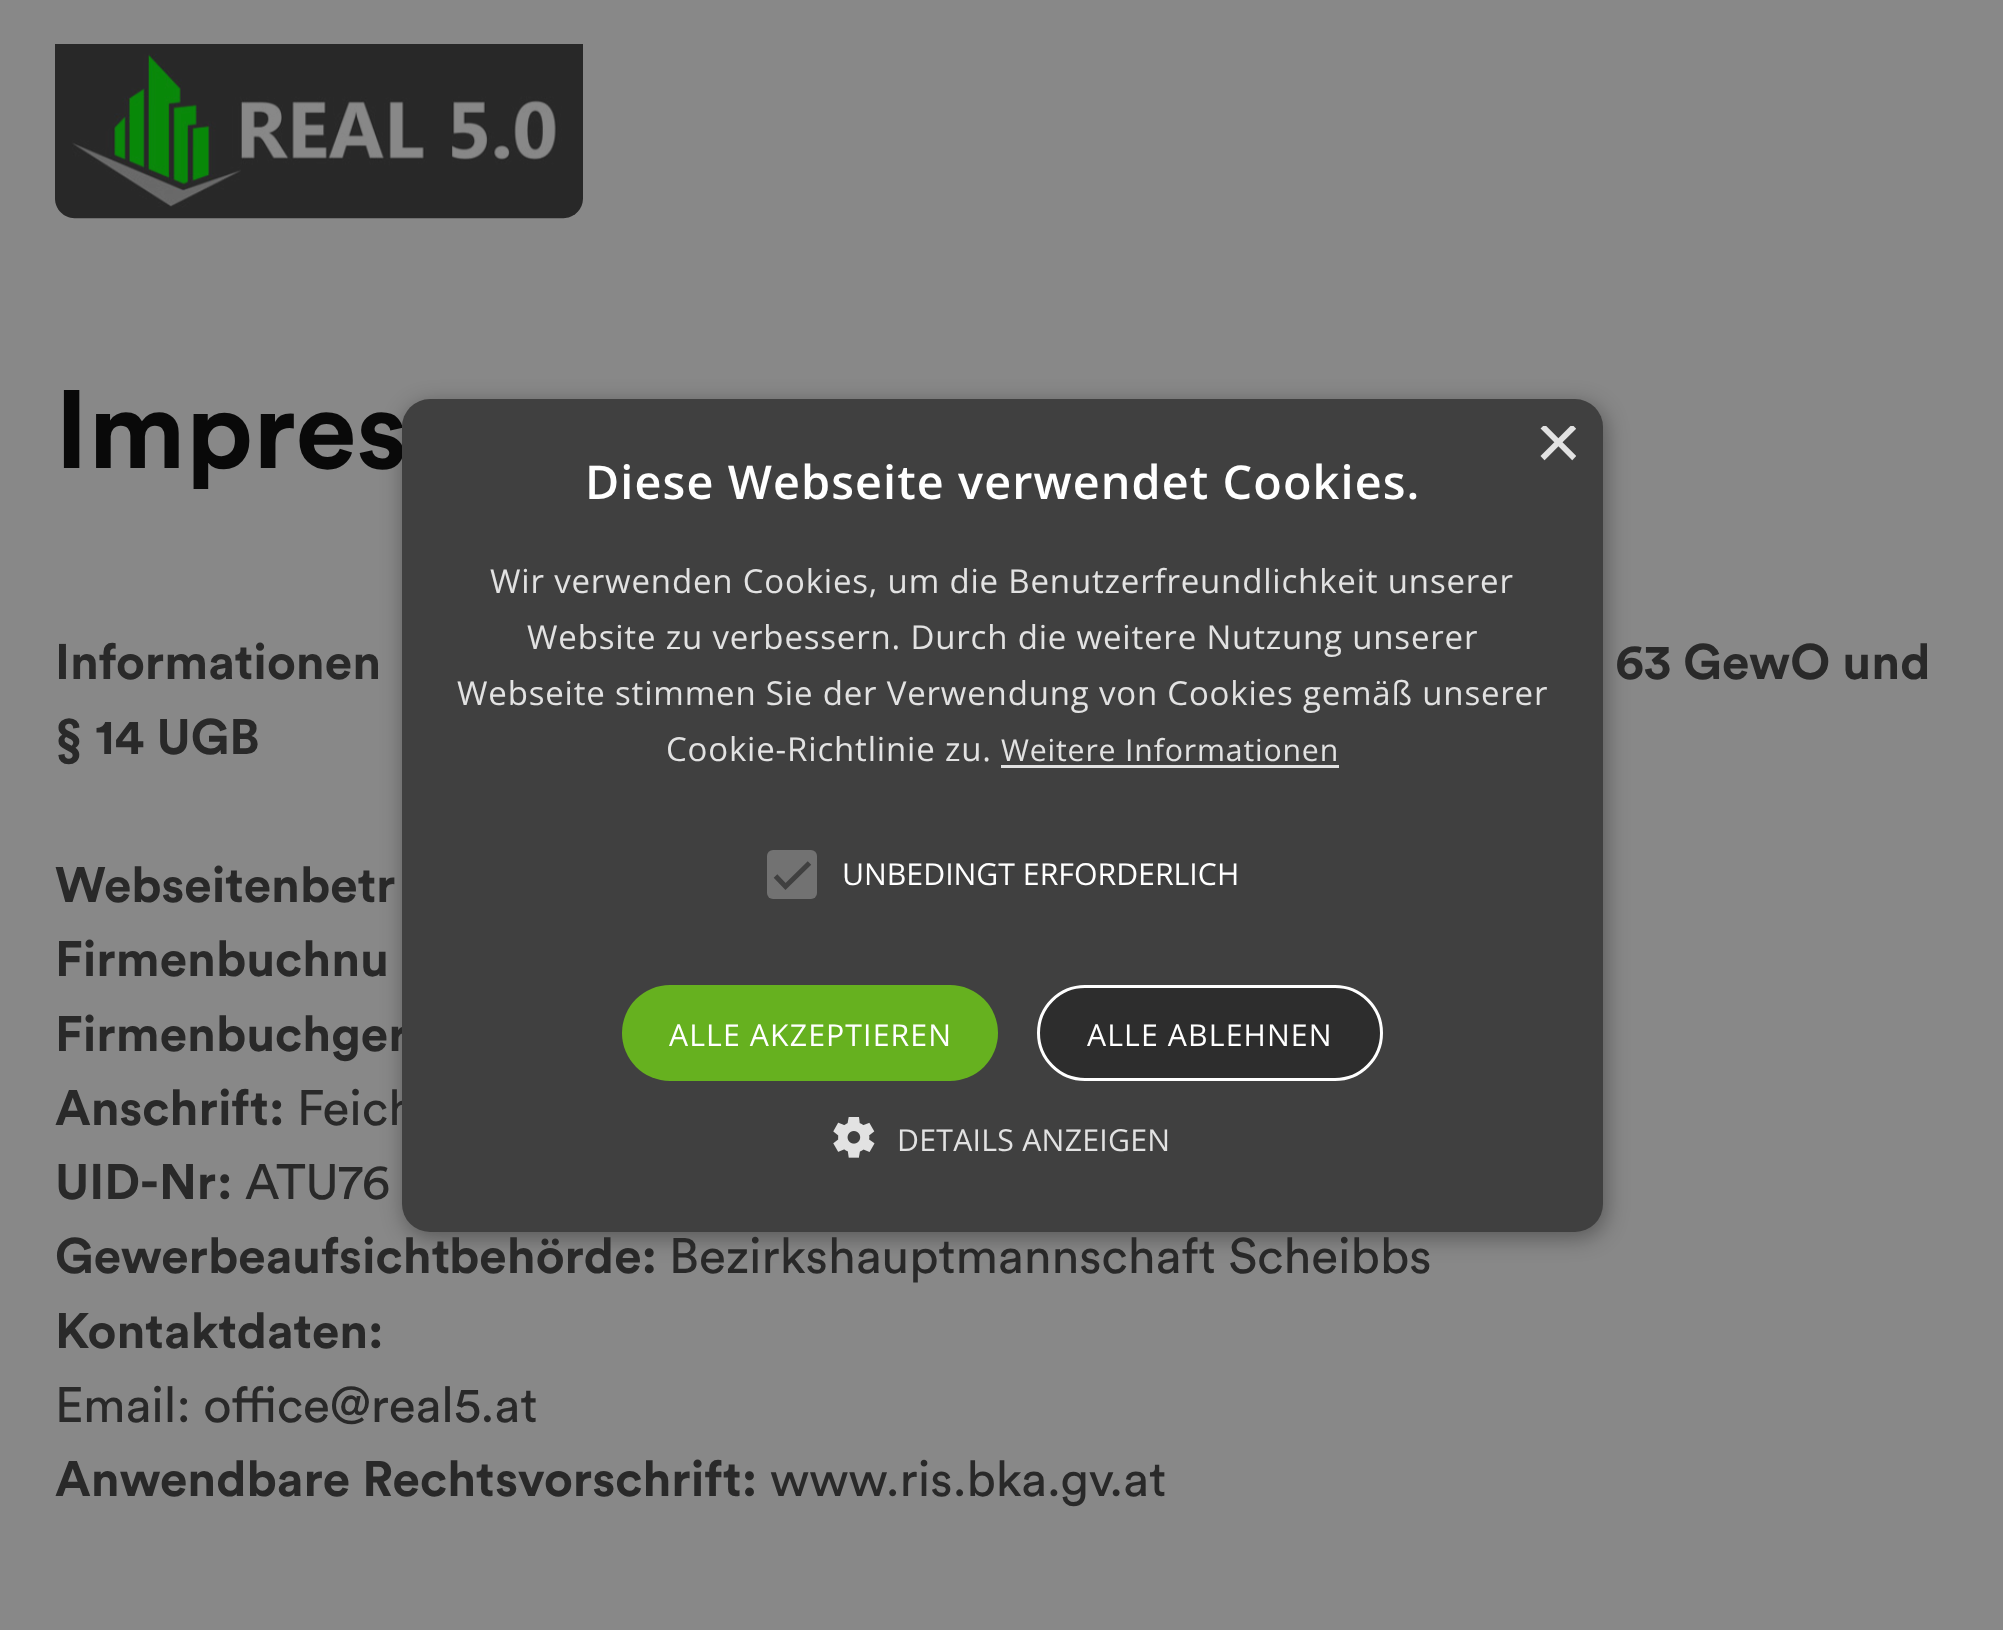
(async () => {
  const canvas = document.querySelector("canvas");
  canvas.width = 2003;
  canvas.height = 1630;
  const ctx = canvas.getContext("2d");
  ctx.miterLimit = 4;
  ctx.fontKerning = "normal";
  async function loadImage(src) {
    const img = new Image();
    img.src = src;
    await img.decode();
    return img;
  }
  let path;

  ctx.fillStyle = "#888888";
  ctx.fillRect(0, 0, 2003, 1630);
  ctx.drawImage(await loadImage("img/1.png"), 55, 44, 528, 175);
  ctx.fillStyle = "rgba(0, 0, 0, 0.35)";
  ctx.filter = "blur(11px)";
  ctx.beginPath();
  ctx.roundRect(404, 404, 1202, 834, 28);
  ctx.fill();
  ctx.filter = "none";
  ctx.font = "bold 110px Circular";
  ctx.fillStyle = "#090909";
  ctx.fillText("Impres", 55, 468);
  ctx.font = "bold 49.5px Circular";
  ctx.fillStyle = "#292929";
  for (const [text, x, y] of [
    ["Informationen", 55, 679],
    ["63 GewO und", 1615, 679],
    ["§ 14 UGB", 55, 754],
    ["Webseitenbetr", 55, 902],
    ["Firmenbuchnu", 55, 976],
    ["Firmenbuchger", 55, 1051],
    ["Anschrift:", 55, 1125],
  ]) {
    ctx.fillText(text, x, y);
  }
  ctx.font = "49.5px Circular";
  ctx.fillText("Feich", 297, 1125);
  ctx.font = "bold 49.5px Circular";
  ctx.fillText("UID-Nr:", 55, 1199);
  ctx.font = "49.5px Circular";
  ctx.fillText("ATU76", 245, 1199);
  ctx.font = "bold 49.5px Circular";
  ctx.fillText("Gewerbeaufsichtbehörde:", 55, 1273);
  ctx.font = "49.5px Circular";
  ctx.fillText("Bezirkshauptmannschaft Scheibbs", 669, 1273);
  ctx.font = "bold 49.5px Circular";
  ctx.fillText("Kontaktdaten:", 55, 1348);
  ctx.font = "49.5px Circular";
  ctx.fillText("Email: office@real5.at", 55, 1422);
  ctx.font = "bold 49.5px Circular";
  ctx.fillText("Anwendbare Rechtsvorschrift:", 55, 1496);
  ctx.font = "49.5px Circular";
  ctx.fillText("www.ris.bka.gv.at", 770, 1496);
  ctx.fillStyle = "#404040";
  ctx.beginPath();
  ctx.roundRect(402, 399, 1201, 833, 28);
  ctx.fill();
  ctx.save();
  ctx.beginPath();
  ctx.rect(1535, 426, 41, 42);
  ctx.clip();
  ctx.font = "80px Liberation Sans";
  ctx.fillStyle = "#e2e2e2";
  ctx.fillText("×", 1535, 469);
  ctx.restore();
  ctx.letterSpacing = "1.1px";
  ctx.font = "600 46.75px Open Sans";
  ctx.fillStyle = "#ffffff";
  ctx.fillText("Diese Webseite verwendet Cookies.", 585, 499);
  ctx.letterSpacing = "0.82px";
  ctx.font = "33px Open Sans";
  ctx.fillStyle = "#e2e2e2";
  for (const [text, x, y] of [
    ["Wir verwenden Cookies, um die Benutzerfreundlichkeit unserer", 490, 593],
    ["Website zu verbessern. Durch die weitere Nutzung unserer", 527, 649],
    ["Webseite stimmen Sie der Verwendung von Cookies gemäß unserer", 457, 705],
    ["Cookie-Richtlinie zu.", 666, 761],
  ]) {
    ctx.fillText(text, x, y);
  }
  ctx.font = "30.25px Open Sans";
  ctx.fillText("Weitere Informationen", 1001, 761);
  ctx.fillRect(1001, 765, 338, 3);
  ctx.fillStyle = "#727272";
  ctx.beginPath();
  ctx.roundRect(767, 850, 50, 49, 6);
  ctx.fill();
  path = new Path2D("M775.5 876L785.5 886.5L809.5 863");
  ctx.strokeStyle = "#404040";
  ctx.lineWidth = 5;
  ctx.stroke(path);
  ctx.letterSpacing = "0px";
  ctx.fillStyle = "#ffffff";
  ctx.fillText("UNBEDINGT ERFORDERLICH", 842, 885);
  ctx.fillStyle = "#66b11f";
  ctx.beginPath();
  ctx.roundRect(622, 985, 376, 96, 48);
  ctx.fill();
  ctx.letterSpacing = "1.1px";
  ctx.fillStyle = "#ffffff";
  ctx.fillText("ALLE AKZEPTIEREN", 669, 1046);
  ctx.fillStyle = "#2d2d2d";
  ctx.beginPath();
  ctx.roundRect(1038.5, 986.5, 343, 93, 46.5);
  ctx.fill();
  ctx.strokeStyle = "#ffffff";
  ctx.lineWidth = 3;
  ctx.stroke();
  ctx.fillStyle = "#ffffff";
  ctx.fillText("ALLE ABLEHNEN", 1087, 1046);
  ctx.drawImage(await loadImage("img/2.png"), 833, 1117, 42, 41);
  ctx.letterSpacing = "0.25px";
  ctx.fillStyle = "#e2e2e2";
  ctx.fillText("DETAILS ANZEIGEN", 897, 1151);
})();
